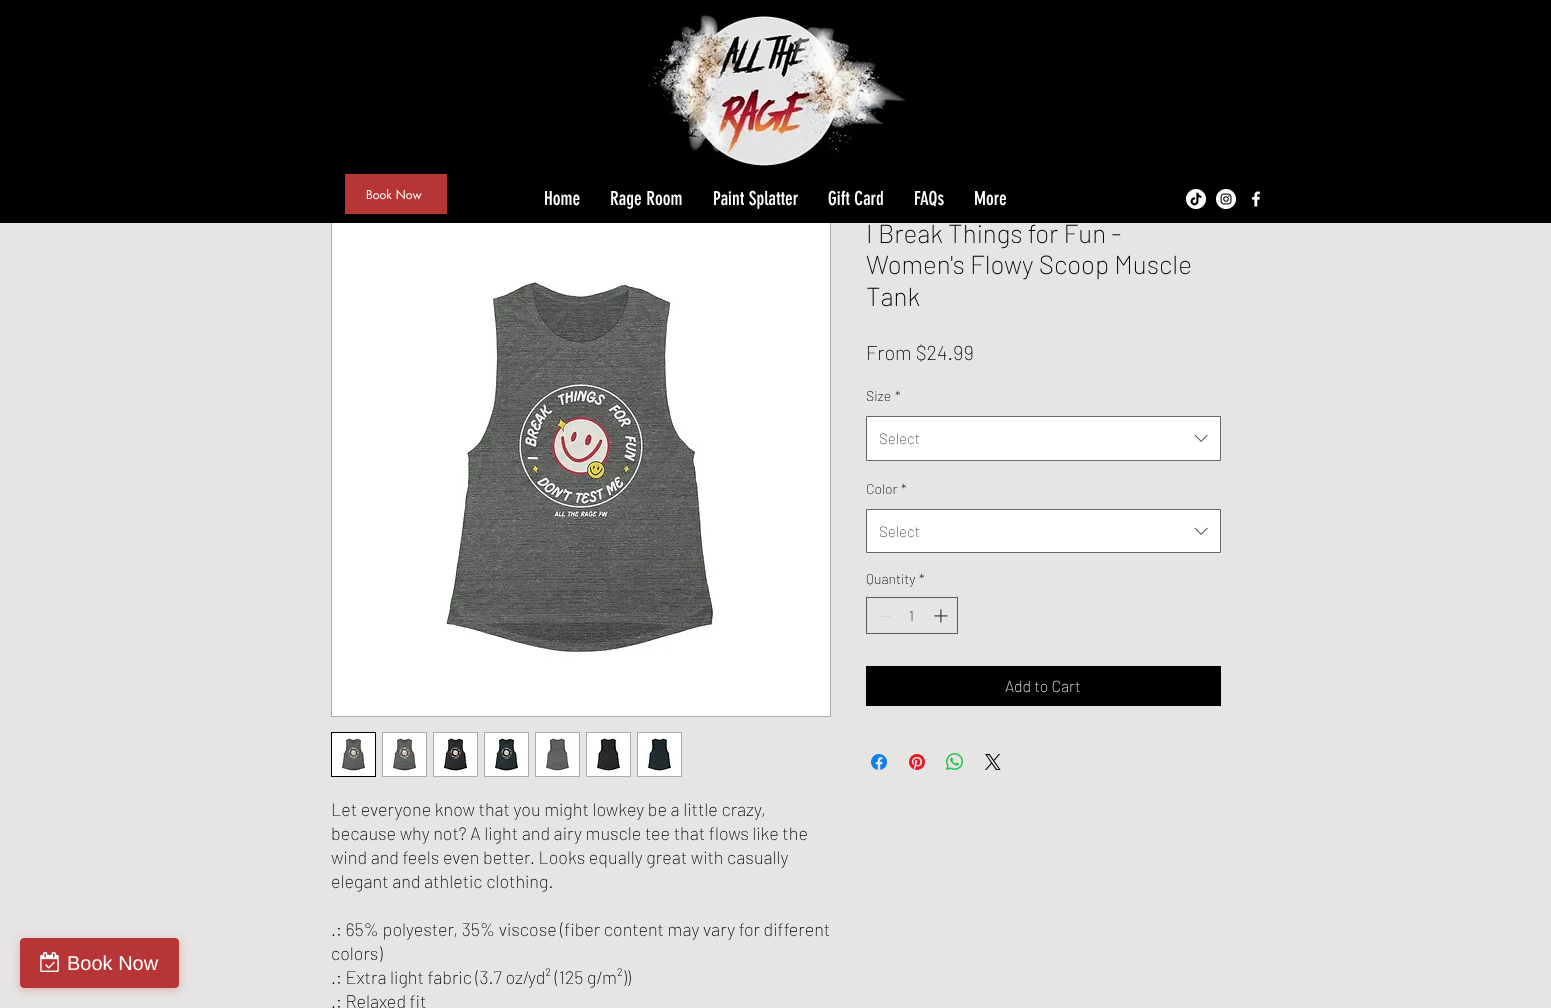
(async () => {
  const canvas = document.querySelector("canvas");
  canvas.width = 1551;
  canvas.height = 1008;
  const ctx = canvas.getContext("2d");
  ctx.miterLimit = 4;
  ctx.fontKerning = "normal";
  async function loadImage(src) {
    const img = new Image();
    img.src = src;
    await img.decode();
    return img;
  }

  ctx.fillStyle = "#e6e5e4";
  ctx.fillRect(0, 0, 1551, 1008);
  ctx.fillStyle = "rgba(183, 54, 53, 0.3)";
  ctx.filter = "blur(5px)";
  ctx.beginPath();
  ctx.roundRect(20, 940, 159, 50, 4);
  ctx.fill();
  ctx.filter = "none";
  ctx.fillStyle = "#b73635";
  ctx.beginPath();
  ctx.roundRect(20.5, 938.5, 158, 49, 3.5);
  ctx.fill();
  ctx.strokeStyle = "#b73635";
  ctx.stroke();
  ctx.drawImage(await loadImage("img/1.png"), 40, 952, 19, 20);
  ctx.strokeStyle = "#acacac";
  ctx.strokeRect(331.5, 217.5, 499, 499);
  ctx.fillStyle = "#000000";
  ctx.fillRect(0, 0, 1551, 223);
  ctx.drawImage(await loadImage("img/2.png"), 647, 14, 259, 152);
  ctx.fillStyle = "#b73635";
  ctx.fillRect(345, 174, 102, 40);
  ctx.drawImage(await loadImage("img/3.png"), 1186, 189, 20, 20);
  ctx.drawImage(await loadImage("img/4.png"), 1216, 189, 20, 20);
  ctx.drawImage(await loadImage("img/5.png"), 1252, 191, 9, 16);
  ctx.fillStyle = "#ffffff";
  ctx.beginPath();
  ctx.rect(866.5, 416.5, 354, 44);
  ctx.fill();
  ctx.strokeStyle = "#666666";
  ctx.stroke();
  ctx.drawImage(await loadImage("img/6.png"), 1194, 434, 14, 8);
  ctx.beginPath();
  ctx.rect(866.5, 509.5, 354, 43);
  ctx.fill();
  ctx.stroke();
  ctx.drawImage(await loadImage("img/6.png"), 1194, 527, 14, 8);
  ctx.strokeStyle = "#5c5c5b";
  ctx.strokeRect(866.5, 597.5, 91, 36);
  ctx.fillStyle = "#d7d6d6";
  ctx.fillRect(878, 616, 13, 1);
  ctx.drawImage(await loadImage("img/7.png"), 934, 609, 14, 14);
  ctx.fillStyle = "#000000";
  ctx.fillRect(866, 666, 355, 40);
  ctx.drawImage(await loadImage("img/8.png"), 871, 754, 16, 16);
  ctx.drawImage(await loadImage("img/9.png"), 909, 754, 16, 16);
  ctx.drawImage(await loadImage("img/10.png"), 946, 753, 17, 17);
  ctx.drawImage(await loadImage("img/11.png"), 985, 754, 16, 16);
  ctx.drawImage(await loadImage("img/12.png"), 332, 223, 498, 493);
  ctx.strokeStyle = "#000000";
  ctx.strokeRect(331.5, 732.5, 44, 44);
  ctx.drawImage(await loadImage("img/13.png"), 332, 733, 43, 43);
  ctx.fillStyle = "#acacac";
  ctx.fillRect(382, 732, 45, 45);
  ctx.drawImage(await loadImage("img/14.png"), 383, 733, 43, 43);
  ctx.fillRect(433, 732, 45, 45);
  ctx.drawImage(await loadImage("img/15.png"), 434, 733, 43, 43);
  ctx.fillRect(484, 732, 45, 45);
  ctx.drawImage(await loadImage("img/16.png"), 485, 733, 43, 43);
  ctx.fillRect(535, 732, 45, 45);
  ctx.drawImage(await loadImage("img/17.png"), 536, 733, 43, 43);
  ctx.fillRect(586, 732, 45, 45);
  ctx.drawImage(await loadImage("img/18.png"), 587, 733, 43, 43);
  ctx.fillRect(637, 732, 45, 45);
  ctx.drawImage(await loadImage("img/19.png"), 638, 733, 43, 43);
  ctx.font = "20px Liberation Sans";
  ctx.fillStyle = "#ffffff";
  ctx.fillText("Book Now", 67, 970);
  ctx.font = "12px futura";
  ctx.fillText("Book Now", 366, 199);
  ctx.font = "19px 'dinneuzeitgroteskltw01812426'";
  for (const [text, x, y] of [
    ["Home", 544, 205],
    ["Rage Room", 610, 205],
    ["Paint Splatter", 713, 205],
    ["Gift Card", 828, 205],
    ["FAQs", 914, 205],
    ["More", 974, 205],
  ]) {
    ctx.fillText(text, x, y);
  }
  ctx.font = "200 26px Barlow";
  ctx.fillStyle = "#000000";
  for (const [text, x, y] of [
    ["I Break Things for Fun -", 866, 243],
    ["Women's Flowy Scoop Muscle", 866, 274],
    ["Tank", 866, 306],
  ]) {
    ctx.fillText(text, x, y);
  }
  ctx.font = "200 20px Barlow";
  ctx.fillText("From $24.99", 866, 360);
  ctx.font = "200 14px Barlow";
  ctx.fillText("Size", 866, 401);
  ctx.fillText("*", 895, 401);
  ctx.font = "200 15px Barlow";
  ctx.fillStyle = "#444444";
  ctx.fillText("Select", 879, 444);
  ctx.font = "200 14px Barlow";
  ctx.fillStyle = "#000000";
  ctx.fillText("Color", 866, 494);
  ctx.fillText("*", 901, 494);
  ctx.font = "200 15px Barlow";
  ctx.fillStyle = "#444444";
  ctx.fillText("Select", 879, 537);
  ctx.font = "200 14px Barlow";
  ctx.fillStyle = "#000000";
  for (const [text, x, y] of [
    ["Quantity", 866, 584],
    ["*", 919, 584],
    ["1", 909, 621],
  ]) {
    ctx.fillText(text, x, y);
  }
  ctx.font = "200 16px Barlow";
  ctx.fillStyle = "#e6e5e4";
  ctx.fillText("Add to Cart", 1005, 692);
  ctx.font = "200 18px Barlow";
  ctx.fillStyle = "#000000";
  for (const [text, x, y] of [
    ["Let everyone know that you might lowkey be a little crazy,", 331, 816],
    ["because why not? A light and airy muscle tee that flows like the", 331, 840],
    ["wind and feels even better. Looks equally great with casually", 331, 864],
    ["elegant and athletic clothing.", 331, 888],
    [".: 65% polyester, 35% viscose (fiber content may vary for different", 331, 936],
    ["colors)", 331, 960],
    [".: Extra light fabric (3.7 oz/yd² (125 g/m²))", 331, 984],
    [".: Relaxed fit", 331, 1008],
  ]) {
    ctx.fillText(text, x, y);
  }
})();
